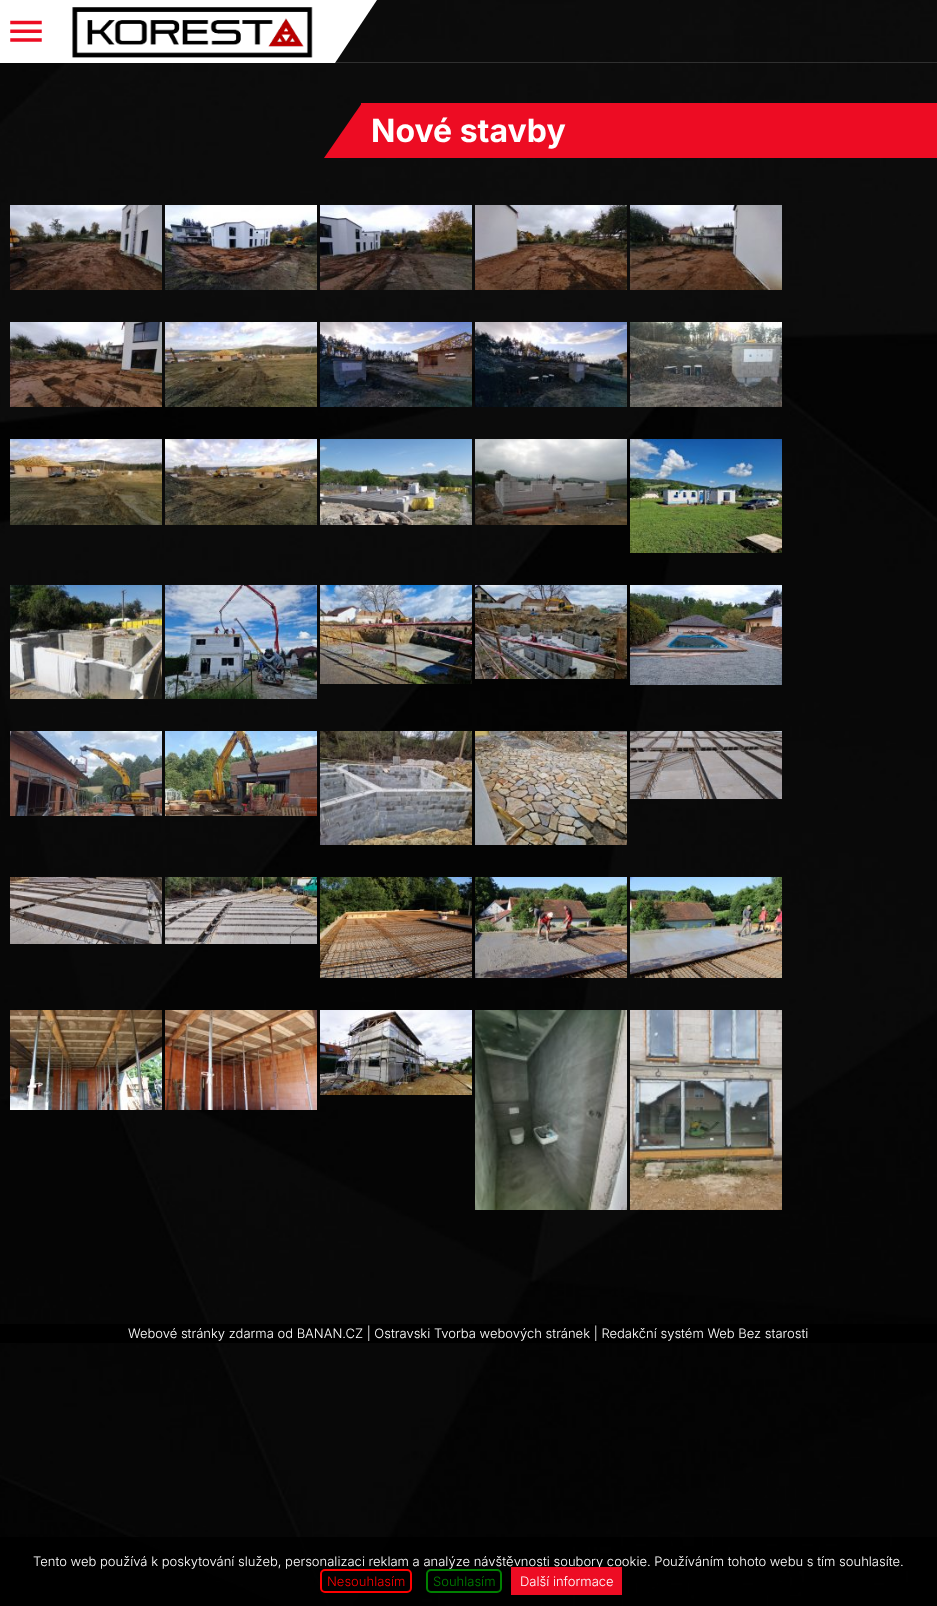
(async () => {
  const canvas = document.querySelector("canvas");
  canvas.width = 937;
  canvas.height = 1606;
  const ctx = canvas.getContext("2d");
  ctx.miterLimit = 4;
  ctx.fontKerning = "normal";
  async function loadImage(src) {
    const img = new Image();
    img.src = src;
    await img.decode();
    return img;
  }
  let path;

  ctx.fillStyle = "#ffffff";
  ctx.fillRect(0, 0, 937, 1606);
  ctx.drawImage(await loadImage("img/1.png"), 0, 63, 937, 1543);
  ctx.drawImage(await loadImage("img/2.png"), 335, 0, 602, 63);
  ctx.fillStyle = "rgba(255, 255, 255, 0.15)";
  ctx.fillRect(335, 62, 602, 1);
  ctx.drawImage(await loadImage("img/3.png"), 10, 20, 32, 22);
  ctx.drawImage(await loadImage("img/4.png"), 72, 7, 241, 51);
  ctx.fillStyle = "#ffffff";
  path = new Path2D("M335 0H377L335 63Z");
  ctx.fill(path);
  ctx.fillStyle = "#ed0c23";
  ctx.fillRect(361, 103, 576, 55);
  path = new Path2D("M362 158H324L362 103Z");
  ctx.fill(path);
  ctx.drawImage(await loadImage("img/5.png"), 10, 205, 152, 85);
  ctx.drawImage(await loadImage("img/6.png"), 165, 205, 152, 85);
  ctx.drawImage(await loadImage("img/7.png"), 320, 205, 152, 85);
  ctx.drawImage(await loadImage("img/8.png"), 475, 205, 152, 85);
  ctx.drawImage(await loadImage("img/9.png"), 630, 205, 152, 85);
  ctx.drawImage(await loadImage("img/10.png"), 10, 322, 152, 85);
  ctx.drawImage(await loadImage("img/11.png"), 165, 322, 152, 85);
  ctx.drawImage(await loadImage("img/12.png"), 320, 322, 152, 85);
  ctx.drawImage(await loadImage("img/13.png"), 475, 322, 152, 85);
  ctx.drawImage(await loadImage("img/14.png"), 630, 322, 152, 85);
  ctx.drawImage(await loadImage("img/15.png"), 10, 439, 152, 86);
  ctx.drawImage(await loadImage("img/16.png"), 165, 439, 152, 86);
  ctx.drawImage(await loadImage("img/17.png"), 320, 439, 152, 86);
  ctx.drawImage(await loadImage("img/18.png"), 475, 439, 152, 86);
  ctx.drawImage(await loadImage("img/19.png"), 630, 439, 152, 114);
  ctx.drawImage(await loadImage("img/20.png"), 10, 585, 152, 114);
  ctx.drawImage(await loadImage("img/21.png"), 165, 585, 152, 114);
  ctx.drawImage(await loadImage("img/22.png"), 320, 585, 152, 99);
  ctx.drawImage(await loadImage("img/23.png"), 475, 585, 152, 94);
  ctx.drawImage(await loadImage("img/24.png"), 630, 585, 152, 100);
  ctx.drawImage(await loadImage("img/25.png"), 10, 731, 152, 85);
  ctx.drawImage(await loadImage("img/26.png"), 165, 731, 152, 85);
  ctx.drawImage(await loadImage("img/27.png"), 320, 731, 152, 114);
  ctx.drawImage(await loadImage("img/28.png"), 475, 731, 152, 114);
  ctx.drawImage(await loadImage("img/29.png"), 630, 731, 152, 68);
  ctx.drawImage(await loadImage("img/30.png"), 10, 877, 152, 67);
  ctx.drawImage(await loadImage("img/31.png"), 165, 877, 152, 67);
  ctx.drawImage(await loadImage("img/32.png"), 320, 877, 152, 101);
  ctx.drawImage(await loadImage("img/33.png"), 475, 877, 152, 101);
  ctx.drawImage(await loadImage("img/34.png"), 630, 877, 152, 101);
  ctx.drawImage(await loadImage("img/35.png"), 10, 1010, 152, 100);
  ctx.drawImage(await loadImage("img/36.png"), 165, 1010, 152, 100);
  ctx.drawImage(await loadImage("img/37.png"), 320, 1010, 152, 85);
  ctx.drawImage(await loadImage("img/38.png"), 475, 1010, 152, 200);
  ctx.drawImage(await loadImage("img/39.png"), 630, 1010, 152, 200);
  ctx.fillStyle = "#000000";
  ctx.fillRect(0, 1324, 937, 19);
  ctx.fillStyle = "rgba(0, 0, 0, 0.8)";
  ctx.fillRect(0, 1537, 937, 69);
  ctx.beginPath();
  ctx.roundRect(321, 1570, 90, 22, 4);
  ctx.strokeStyle = "#ff0000";
  ctx.lineWidth = 2;
  ctx.stroke();
  ctx.beginPath();
  ctx.roundRect(427, 1570, 74, 22, 4);
  ctx.strokeStyle = "#008000";
  ctx.stroke();
  ctx.font = "bold 32px Inter";
  ctx.fillStyle = "#ffffff";
  ctx.fillText("Nové stavby", 371, 142);
  ctx.font = "300 13px Inter";
  ctx.fillText("Webové stránky zdarma od BANAN.CZ | Ostravski Tvorba webových stránek | Redakční systém Web Bez starosti", 128, 1338);
  ctx.fillText("Tento web používá k poskytování služeb, personalizaci reklam a analýze návštěvnosti soubory cookie. Používáním tohoto webu s tím souhlasíte.", 33, 1566);
  ctx.fillStyle = "#ff0000";
  ctx.fillText("Nesouhlasím", 327, 1586);
  ctx.fillStyle = "#008000";
  ctx.fillText("Souhlasím", 433, 1586);
  ctx.fillStyle = "#ed0c23";
  ctx.fillRect(511, 1567, 111, 28);
  ctx.fillStyle = "#ffffff";
  ctx.fillText("Další informace", 520, 1586);
})();
